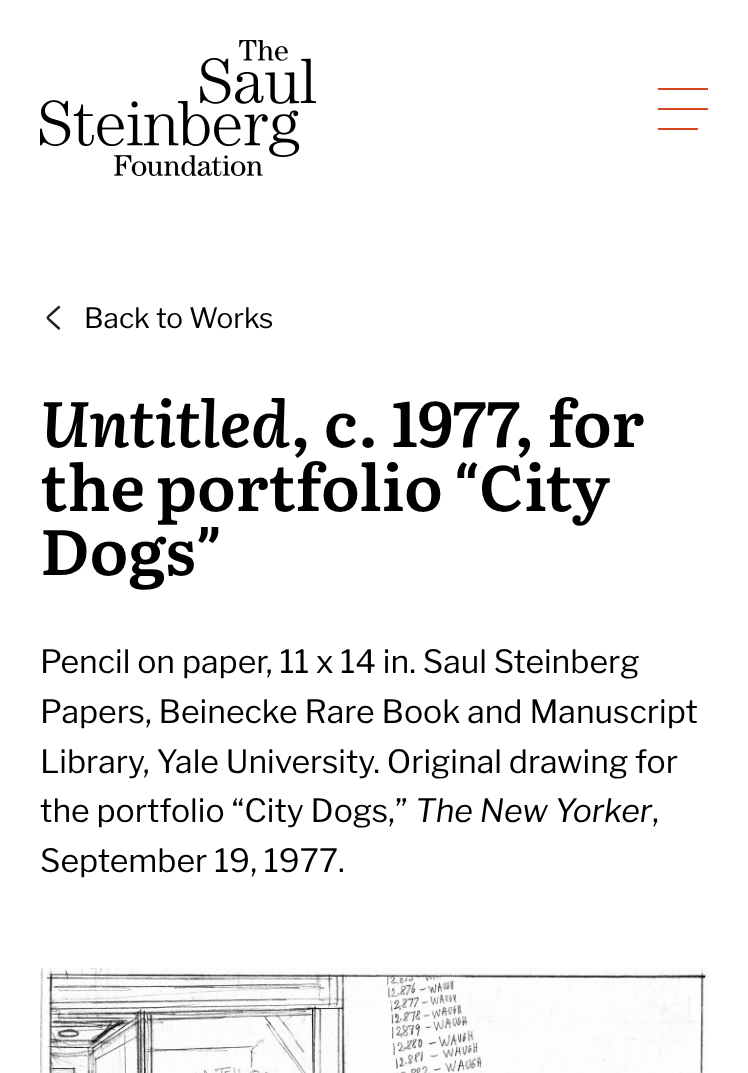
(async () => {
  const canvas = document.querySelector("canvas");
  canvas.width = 748;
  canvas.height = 1073;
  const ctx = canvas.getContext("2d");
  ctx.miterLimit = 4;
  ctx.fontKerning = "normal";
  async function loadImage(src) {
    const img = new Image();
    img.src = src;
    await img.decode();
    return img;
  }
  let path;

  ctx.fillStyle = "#ffffff";
  ctx.fillRect(0, 0, 748, 1073);
  ctx.drawImage(await loadImage("img/1.png"), 40, 40, 276, 136);
  for (const [x, y, w, h, color] of [
    [658, 108, 50, 2, "#d94523"],
    [658, 88, 50, 2, "#d94523"],
    [658, 128, 40, 2, "#d94523"],
  ]) {
    ctx.fillStyle = color;
    ctx.fillRect(x, y, w, h);
  }
  path = new Path2D("M59 328.5L49.5 320C47 317.5 47 318 49.5 315.5L59 307");
  ctx.strokeStyle = "#212121";
  ctx.lineWidth = 2.4;
  ctx.lineCap = "round";
  ctx.lineJoin = "round";
  ctx.stroke(path);
  ctx.drawImage(await loadImage("img/2.png"), 40, 968, 668, 105);
  ctx.font = "100 28px Libre Franklin";
  ctx.fillStyle = "#000000";
  ctx.fillText("Back to Works", 84, 328);
  ctx.font = "italic 600 64px Literata";
  ctx.fillText("Untitled", 40, 447);
  ctx.font = "600 64px Literata";
  ctx.fillText(", c. 1977, for", 290, 447);
  ctx.wordSpacing = "-2px";
  ctx.fillText("the portfolio", 40, 511);
  ctx.wordSpacing = "0px";
  ctx.font = "600 64px Roboto";
  ctx.fillText("“", 454, 511);
  ctx.font = "600 64px Literata";
  ctx.fillText("City", 479, 511);
  ctx.fillText("Dogs", 40, 575);
  ctx.font = "600 64px Roboto";
  ctx.fillText("”", 196, 575);
  ctx.font = "100 32px Libre Franklin";
  for (const [text, x, y] of [
    ["Pencil on paper, 11 x 14 in. Saul Steinberg", 40, 673],
    ["Papers, Beinecke Rare Book and Manuscript", 40, 723],
    ["Library, Yale University. Original drawing for", 40, 773],
    ["the portfolio “City Dogs,”", 40, 822],
  ]) {
    ctx.fillText(text, x, y);
  }
  ctx.font = "italic 100 32px Libre Franklin";
  ctx.fillText("The New Yorker", 415, 822);
  ctx.font = "100 32px Libre Franklin";
  ctx.fillText(",", 652, 822);
  ctx.fillText("September 19, 1977.", 40, 872);
})();
